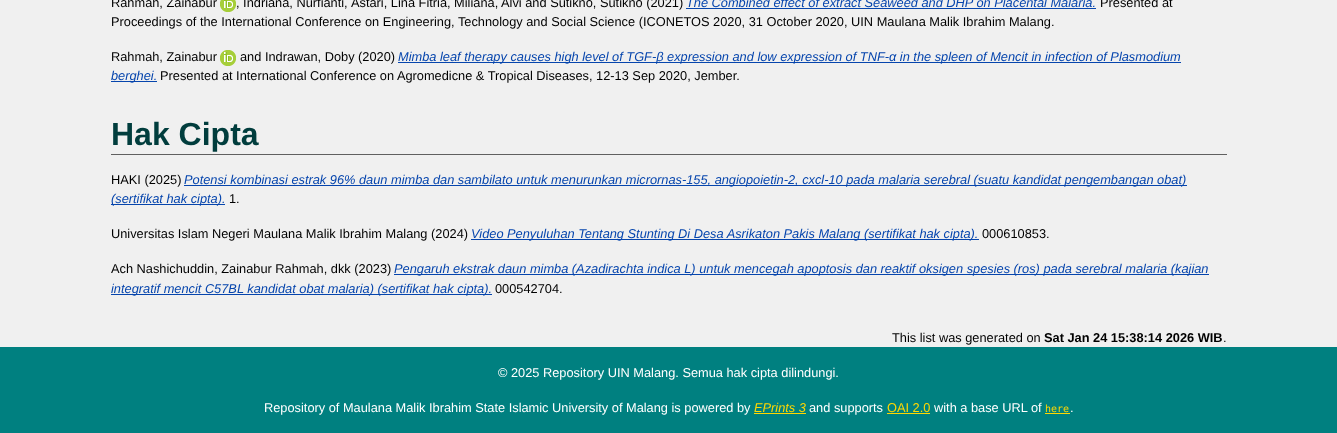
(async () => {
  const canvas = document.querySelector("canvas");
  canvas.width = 1337;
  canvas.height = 433;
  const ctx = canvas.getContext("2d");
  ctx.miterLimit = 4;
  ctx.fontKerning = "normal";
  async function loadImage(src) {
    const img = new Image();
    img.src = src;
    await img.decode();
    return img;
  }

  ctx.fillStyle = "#f0f0f0";
  ctx.fillRect(0, 0, 1337, 433);
  ctx.drawImage(await loadImage("img/1.png"), 220, 0, 16, 12);
  ctx.fillStyle = "#0645ad";
  ctx.fillRect(686, 8, 410, 1);
  ctx.drawImage(await loadImage("img/2.png"), 220, 50, 16, 16);
  for (const [x, y, w, h, color] of [
    [398, 62, 783, 1, "#0645ad"],
    [111, 81, 46, 1, "#0645ad"],
    [111, 154, 1116, 1, "#606060"],
    [184, 185, 1003, 1, "#0645ad"],
    [111, 204, 114, 1, "#0645ad"],
    [471, 239, 508, 1, "#0645ad"],
    [394, 274, 815, 1, "#0645ad"],
    [111, 294, 381, 1, "#0645ad"],
    [0, 347, 1337, 86, "#008080"],
    [754, 413, 52, 1, "#ffd700"],
    [887, 413, 43, 1, "#ffd700"],
    [1045, 413, 25, 1, "#ffd700"],
  ]) {
    ctx.fillStyle = color;
    ctx.fillRect(x, y, w, h);
  }
  ctx.font = "12.8px Liberation Sans";
  ctx.fillStyle = "#000000";
  for (const [text, x, y] of [
    ["Rahmah, Zainabur", 111, 7],
    [", Indriana, Nurfianti,", 236, 7],
    ["Astari, Lina Fitria, Miliana, Alvi and Sutikno, Sutikno (2021)", 351, 7],
  ]) {
    ctx.fillText(text, x, y);
  }
  ctx.font = "italic 12.8px Liberation Sans";
  ctx.fillStyle = "#0645ad";
  ctx.fillText("The Combined effect of extract Seaweed and DHP on Placental Malaria.", 686, 7);
  ctx.font = "12.8px Liberation Sans";
  ctx.fillStyle = "#000000";
  for (const [text, x, y] of [
    ["Presented at", 1100, 7],
    ["Proceedings of the International Conference on Engineering, Technology and Social Science (ICONETOS 2020, 31 October 2020, UIN Maulana Malik Ibrahim Malang.", 111, 26],
    ["Rahmah, Zainabur", 111, 61],
    ["and Indrawan, Doby (2020)", 240, 61],
  ]) {
    ctx.fillText(text, x, y);
  }
  ctx.font = "italic 12.8px Liberation Sans";
  ctx.fillStyle = "#0645ad";
  ctx.fillText("Mimba leaf therapy causes high level of TGF-β expression and low expression of TNF-α in the spleen of Mencit in infection of Plasmodium", 398, 61);
  ctx.fillText("berghei.", 111, 80);
  ctx.font = "12.8px Liberation Sans";
  ctx.fillStyle = "#000000";
  ctx.fillText("Presented at International Conference on Agromedicne & Tropical Diseases, 12-13 Sep 2020, Jember.", 160, 80);
  ctx.font = "bold 32px Liberation Sans";
  ctx.fillStyle = "#013d3d";
  ctx.fillText("Hak Cipta", 111, 145);
  ctx.font = "12.8px Liberation Sans";
  ctx.fillStyle = "#000000";
  ctx.fillText("HAKI (2025)", 111, 184);
  ctx.font = "italic 12.8px Liberation Sans";
  ctx.fillStyle = "#0645ad";
  ctx.fillText("Potensi kombinasi estrak 96% daun mimba dan sambilato untuk menurunkan micrornas-155, angiopoietin-2, cxcl-10 pada malaria serebral (suatu kandidat pengembangan obat)", 184, 184);
  ctx.fillText("(sertifikat hak cipta).", 111, 203);
  ctx.font = "12.8px Liberation Sans";
  ctx.fillStyle = "#000000";
  ctx.fillText("1.", 229, 203);
  ctx.fillText("Universitas Islam Negeri Maulana Malik Ibrahim Malang (2024)", 111, 238);
  ctx.font = "italic 12.8px Liberation Sans";
  ctx.fillStyle = "#0645ad";
  ctx.fillText("Video Penyuluhan Tentang Stunting Di Desa Asrikaton Pakis Malang (sertifikat hak cipta).", 471, 238);
  ctx.font = "12.8px Liberation Sans";
  ctx.fillStyle = "#000000";
  ctx.fillText("000610853.", 982, 238);
  ctx.fillText("Ach Nashichuddin, Zainabur Rahmah, dkk (2023)", 111, 273);
  ctx.font = "italic 12.8px Liberation Sans";
  ctx.fillStyle = "#0645ad";
  ctx.fillText("Pengaruh ekstrak daun mimba (Azadirachta indica L) untuk mencegah apoptosis dan reaktif oksigen spesies (ros) pada serebral malaria (kajian", 394, 273);
  ctx.fillText("integratif mencit C57BL kandidat obat malaria) (sertifikat hak cipta).", 111, 293);
  ctx.font = "12.8px Liberation Sans";
  ctx.fillStyle = "#000000";
  ctx.fillText("000542704.", 495, 293);
  ctx.fillText("This list was generated on", 892, 342);
  ctx.font = "bold 12.8px Liberation Sans";
  ctx.fillText("Sat Jan 24 15:38:14 2026 WIB", 1044, 342);
  ctx.font = "12.8px Liberation Sans";
  ctx.fillText(".", 1223, 342);
  ctx.fillStyle = "#ffffff";
  ctx.fillText("© 2025 Repository UIN Malang. Semua hak cipta dilindungi.", 498, 377);
  ctx.fillText("Repository of Maulana Malik Ibrahim State Islamic University of Malang is powered by", 264, 412);
  ctx.font = "italic 12.8px Liberation Sans";
  ctx.fillStyle = "#ffd700";
  ctx.fillText("EPrints 3", 754, 412);
  ctx.font = "12.8px Liberation Sans";
  ctx.fillStyle = "#ffffff";
  ctx.fillText("and supports", 809, 412);
  ctx.fillStyle = "#ffd700";
  ctx.fillText("OAI 2.0", 887, 412);
  ctx.fillStyle = "#ffffff";
  ctx.fillText("with a base URL of", 934, 412);
  ctx.font = "10px DejaVu Sans Mono";
  ctx.fillStyle = "#ffd700";
  ctx.fillText("here", 1045, 412);
  ctx.font = "12.8px Liberation Sans";
  ctx.fillStyle = "#ffffff";
  ctx.fillText(".", 1070, 412);
})();
